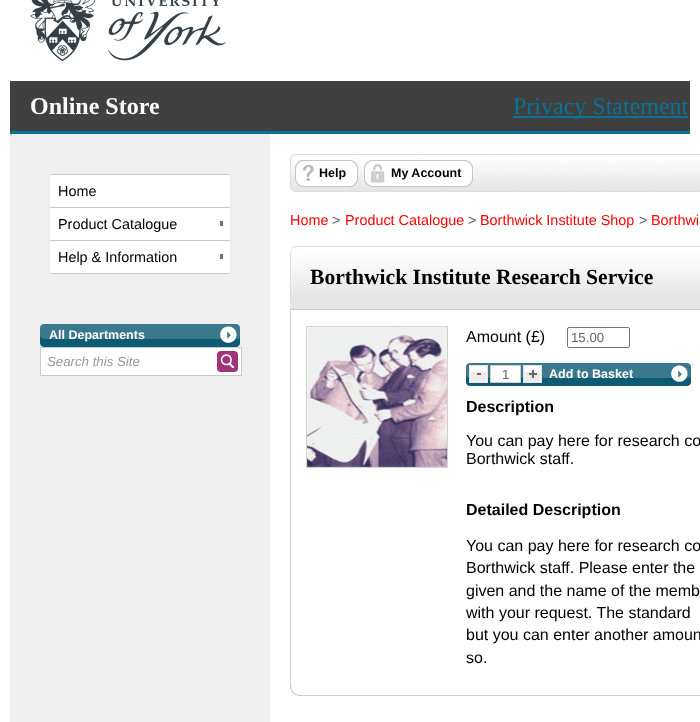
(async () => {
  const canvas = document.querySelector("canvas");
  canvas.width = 700;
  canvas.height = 722;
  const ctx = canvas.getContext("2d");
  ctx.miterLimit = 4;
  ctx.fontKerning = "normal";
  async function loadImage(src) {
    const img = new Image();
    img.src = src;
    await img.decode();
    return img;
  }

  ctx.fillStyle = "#ffffff";
  ctx.fillRect(0, 0, 700, 722);
  ctx.drawImage(await loadImage("img/1.png"), 30, 0, 196, 61);
  for (const [x, y, w, h, color] of [
    [10, 81, 680, 50, "#404040"],
    [10, 131, 680, 3, "#087396"],
    [513, 116, 175, 2, "#087396"],
    [10, 134, 260, 588, "#efefef"],
    [10, 134, 2, 2, "#cccccc"],
    [50, 174, 180, 1, "#cccccc"],
    [50, 175, 180, 32, "#ffffff"],
    [50, 207, 180, 1, "#cccccc"],
    [50, 208, 180, 32, "#ffffff"],
    [50, 240, 180, 1, "#cccccc"],
    [220, 221, 3, 5, "#717171"],
    [50, 241, 180, 32, "#ffffff"],
    [50, 273, 180, 1, "#cccccc"],
    [220, 254, 3, 5, "#717171"],
    [40, 324, 200, 23, "#0c5a73"],
  ]) {
    ctx.fillStyle = color;
    ctx.fillRect(x, y, w, h);
  }
  ctx.drawImage(await loadImage("img/2.png"), 40, 324, 200, 23);
  ctx.drawImage(await loadImage("img/3.png"), 49, 324, 191, 23);
  ctx.fillStyle = "#ffffff";
  ctx.beginPath();
  ctx.rect(40.5, 347.5, 201, 28);
  ctx.fill();
  ctx.strokeStyle = "#cccccc";
  ctx.stroke();
  ctx.fillStyle = "#a23479";
  ctx.fillRect(217, 351, 21, 21);
  ctx.drawImage(await loadImage("img/4.png"), 217, 351, 21, 21);
  ctx.drawImage(await loadImage("img/5.png"), 290, 154, 410, 38);
  ctx.drawImage(await loadImage("img/6.png"), 295, 160, 63, 27);
  ctx.drawImage(await loadImage("img/7.png"), 364, 160, 109, 27);
  ctx.strokeStyle = "#d1d1d1";
  ctx.strokeRect(290.5, 246.5, 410, 449);
  ctx.fillStyle = "#e5e5e5";
  ctx.fillRect(290, 303, 2, 6);
  ctx.drawImage(await loadImage("img/8.png"), 290, 246, 2, 57);
  ctx.fillStyle = "#cccccc";
  ctx.fillRect(290, 309, 410, 1);
  ctx.fillStyle = "#e5e5e5";
  ctx.fillRect(292, 294, 408, 15);
  ctx.drawImage(await loadImage("img/9.png"), 292, 246, 408, 48);
  ctx.strokeRect(306.5, 326.5, 141, 141);
  ctx.drawImage(await loadImage("img/10.png"), 307, 327, 140, 140);
  ctx.beginPath();
  ctx.roundRect(567.5, 327.5, 62, 20, 1.5);
  ctx.strokeStyle = "#767676";
  ctx.stroke();
  ctx.fillStyle = "#0c5a73";
  ctx.fillRect(466, 363, 225, 23);
  ctx.drawImage(await loadImage("img/13.png"), 466, 363, 225, 23);
  ctx.drawImage(await loadImage("img/14.png"), 475, 363, 216, 23);
  ctx.drawImage(await loadImage("img/11.png"), 469, 365, 19, 18);
  ctx.fillStyle = "#ffffff";
  ctx.beginPath();
  ctx.rect(490.5, 365.5, 30, 17);
  ctx.fill();
  ctx.strokeStyle = "#d1d1d1";
  ctx.stroke();
  ctx.drawImage(await loadImage("img/12.png"), 523, 365, 19, 18);
  ctx.drawImage(await loadImage("img/15.png"), 290, 684, 410, 12);
  ctx.font = "bold 24px Liberation Serif";
  ctx.fillStyle = "#f9f9f9";
  ctx.fillText("Online Store", 30, 114);
  ctx.font = "24px Liberation Serif";
  ctx.fillStyle = "#087396";
  ctx.fillText("Privacy Statement", 513, 114);
  ctx.font = "14.4px Liberation Sans";
  ctx.fillStyle = "#000000";
  for (const [text, x, y] of [
    ["Home", 58, 196],
    ["Product Catalogue", 58, 229],
    ["Help & Information", 58, 262],
  ]) {
    ctx.fillText(text, x, y);
  }
  ctx.font = "bold 12.5px Liberation Sans";
  ctx.fillStyle = "#ffffff";
  ctx.fillText("All Departments", 49, 339);
  ctx.font = "italic 13.25px Liberation Sans";
  ctx.fillStyle = "#999999";
  ctx.fillText("Search this Site", 47, 366);
  ctx.font = "bold 12.5px Liberation Sans";
  ctx.fillStyle = "#000000";
  ctx.fillText("Help", 319, 177);
  ctx.fillText("My Account", 391, 177);
  ctx.font = "14.4px Liberation Sans";
  ctx.fillStyle = "#ff0000";
  ctx.fillText("Home", 290, 225);
  ctx.fillStyle = "#666666";
  ctx.fillText(">", 332, 225);
  ctx.fillStyle = "#ff0000";
  ctx.fillText("Product Catalogue", 345, 225);
  ctx.fillStyle = "#666666";
  ctx.fillText(">", 468, 225);
  ctx.fillStyle = "#ff0000";
  ctx.fillText("Borthwick Institute Shop", 480, 225);
  ctx.fillStyle = "#666666";
  ctx.fillText(">", 639, 225);
  ctx.fillStyle = "#ff0000";
  ctx.fillText("Borthwi", 651, 225);
  ctx.font = "bold 21.6px Liberation Serif";
  ctx.fillStyle = "#000000";
  ctx.fillText("Borthwick Institute Research Service", 310, 284);
  ctx.font = "16px Liberation Sans";
  ctx.fillText("Amount (£)", 466, 342);
  ctx.font = "13.25px Liberation Sans";
  ctx.fillStyle = "#666666";
  ctx.fillText("15.00", 571, 342);
  ctx.fillText("1", 502, 379);
  ctx.font = "bold 12.5px Liberation Sans";
  ctx.fillStyle = "#ffffff";
  ctx.fillText("Add to Basket", 549, 378);
  ctx.font = "bold 16px Liberation Sans";
  ctx.fillStyle = "#000000";
  ctx.fillText("Description", 466, 412);
  ctx.font = "16px Liberation Sans";
  ctx.fillText("You can pay here for research co", 466, 446);
  ctx.fillText("Borthwick staff.", 466, 464);
  ctx.font = "bold 16px Liberation Sans";
  ctx.fillText("Detailed Description", 466, 515);
  ctx.font = "16px Liberation Sans";
  for (const [text, x, y] of [
    ["You can pay here for research co", 466, 551],
    ["Borthwick staff. Please enter the", 466, 573],
    ["given and the name of the memb", 466, 596],
    ["with your request. The standard", 466, 618],
    ["but you can enter another amoun", 466, 640],
    ["so.", 466, 663],
  ]) {
    ctx.fillText(text, x, y);
  }
})();
